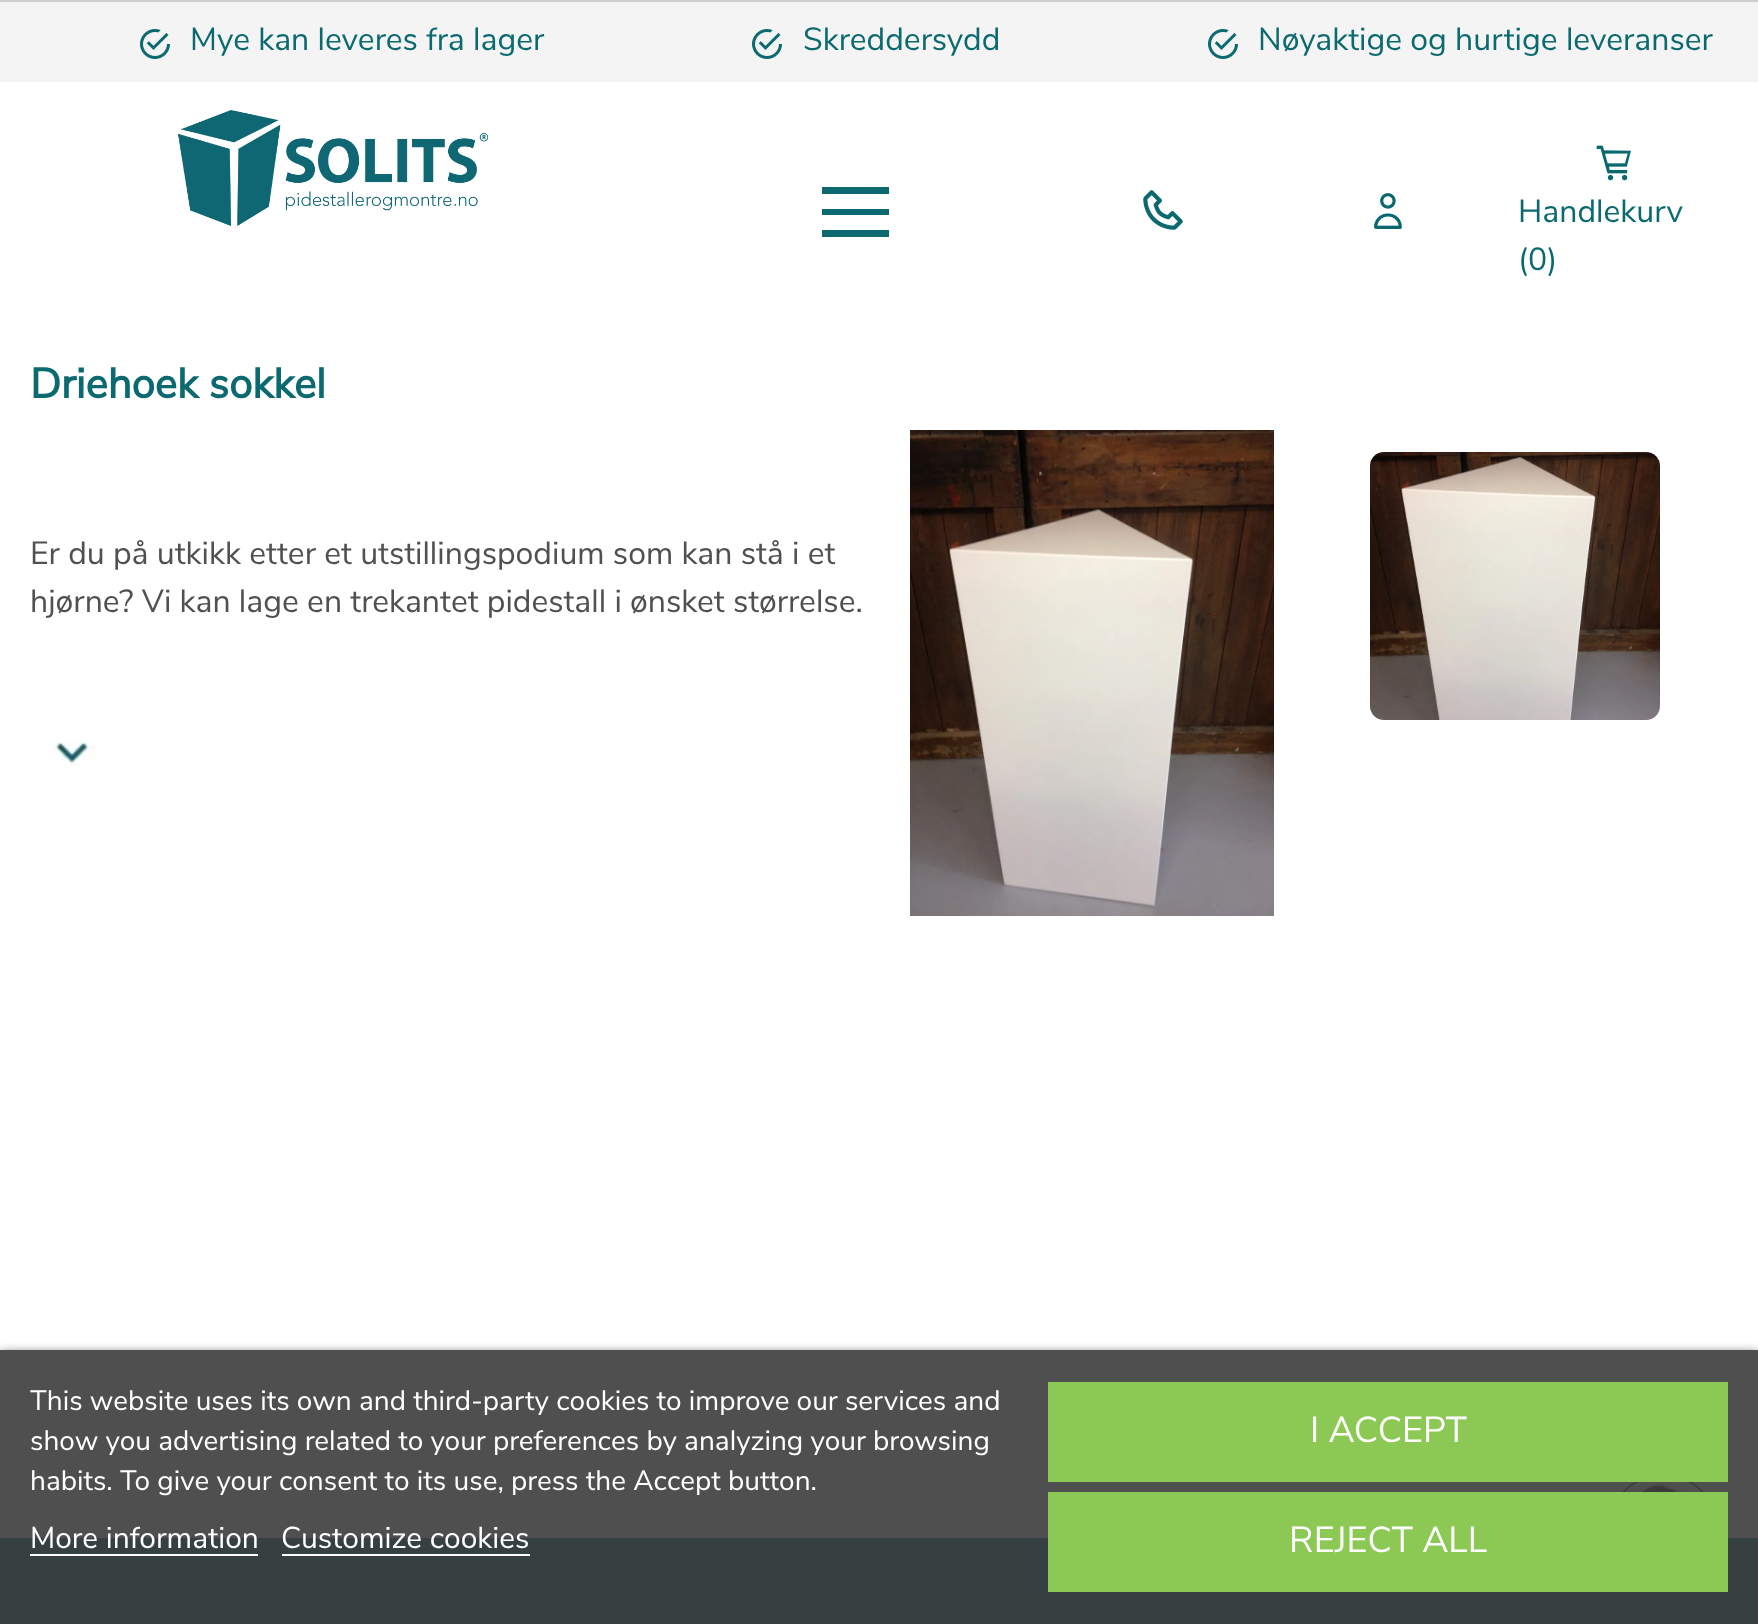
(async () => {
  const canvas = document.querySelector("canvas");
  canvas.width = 1758;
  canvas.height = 1624;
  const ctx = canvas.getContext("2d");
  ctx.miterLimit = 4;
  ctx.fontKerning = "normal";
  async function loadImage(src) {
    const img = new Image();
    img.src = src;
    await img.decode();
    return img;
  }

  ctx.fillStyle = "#ffffff";
  ctx.fillRect(0, 0, 1758, 1624);
  for (const [x, y, w, h, color] of [
    [0, 1350, 1758, 188, "#4f4f4f"],
    [0, 0, 1758, 2, "#cecece"],
    [0, 2, 1758, 80, "#f5f4f4"],
  ]) {
    ctx.fillStyle = color;
    ctx.fillRect(x, y, w, h);
  }
  ctx.drawImage(await loadImage("img/1.png"), 140, 29, 30, 30);
  ctx.drawImage(await loadImage("img/1.png"), 752, 29, 30, 30);
  ctx.drawImage(await loadImage("img/1.png"), 1208, 29, 30, 30);
  ctx.drawImage(await loadImage("img/2.png"), 178, 110, 310, 116);
  for (const [x, y, w, h, color] of [
    [822, 187, 67, 7, "#0b6a70"],
    [822, 209, 67, 6, "#0b6a70"],
    [822, 230, 67, 7, "#0b6a70"],
  ]) {
    ctx.fillStyle = color;
    ctx.fillRect(x, y, w, h);
  }
  ctx.drawImage(await loadImage("img/3.png"), 1143, 190, 40, 40);
  ctx.drawImage(await loadImage("img/4.png"), 1374, 193, 28, 36);
  ctx.drawImage(await loadImage("img/5.png"), 1596, 145, 35, 36);
  ctx.drawImage(await loadImage("img/6.png"), 46, 741, 49, 25);
  ctx.drawImage(await loadImage("img/7.png"), 910, 430, 364, 486);
  ctx.drawImage(await loadImage("img/8.png"), 1370, 452, 290, 268);
  ctx.fillStyle = "#364040";
  ctx.fillRect(0, 1538, 1758, 86);
  ctx.beginPath();
  ctx.arc(1663, 1529, 54, 0, Math.PI * 2);
  ctx.strokeStyle = "#3f3f3f";
  ctx.lineWidth = 2;
  ctx.stroke();
  ctx.drawImage(await loadImage("img/9.png"), 1625, 1482, 76, 10);
  ctx.save();
  ctx.beginPath();
  ctx.rect(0, 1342, 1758, 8);
  ctx.clip();
  ctx.fillStyle = "#707070";
  ctx.filter = "blur(5px)";
  ctx.beginPath();
  ctx.rect(0, 1352, 1758, 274);
  ctx.fill();
  ctx.filter = "none";
  ctx.restore();
  for (const [x, y, w, h, color] of [
    [30, 1554, 228, 2, "#ffffff"],
    [282, 1554, 248, 2, "#ffffff"],
    [1048, 1382, 680, 100, "#8bc954"],
    [1048, 1492, 680, 100, "#8bc954"],
  ]) {
    ctx.fillStyle = color;
    ctx.fillRect(x, y, w, h);
  }
  ctx.font = "32px Nunito Sans";
  ctx.fillStyle = "#0b6a70";
  for (const [text, x, y] of [
    ["Mye kan leveres fra lager", 190, 50],
    ["Skreddersydd", 803, 50],
    ["Nøyaktige og hurtige leveranser", 1258, 50],
    ["Handlekurv", 1518, 222],
    ["(0)", 1518, 270],
  ]) {
    ctx.fillText(text, x, y);
  }
  ctx.font = "bold 42px Nunito Sans";
  ctx.fillText("Driehoek sokkel", 30, 398);
  ctx.font = "32px Nunito Sans";
  ctx.fillStyle = "#505050";
  ctx.fillText("Er du på utkikk etter et utstillingspodium som kan stå i et", 30, 564);
  ctx.fillText("hjørne? Vi kan lage en trekantet pidestall i ønsket størrelse.", 30, 612);
  ctx.font = "28px Nunito Sans";
  ctx.fillStyle = "#ffffff";
  for (const [text, x, y] of [
    ["This website uses its own and third-party cookies to improve our services and", 30, 1410],
    ["show you advertising related to your preferences by analyzing your browsing", 30, 1450],
    ["habits. To give your consent to its use, press the Accept button.", 30, 1490],
  ]) {
    ctx.fillText(text, x, y);
  }
  ctx.font = "30px Nunito Sans";
  ctx.fillText("More information", 30, 1548);
  ctx.fillText("Customize cookies", 281, 1548);
  ctx.font = "36px Nunito Sans";
  ctx.fillText("I ACCEPT", 1310, 1442);
  ctx.fillText("REJECT ALL", 1289, 1552);
})();
